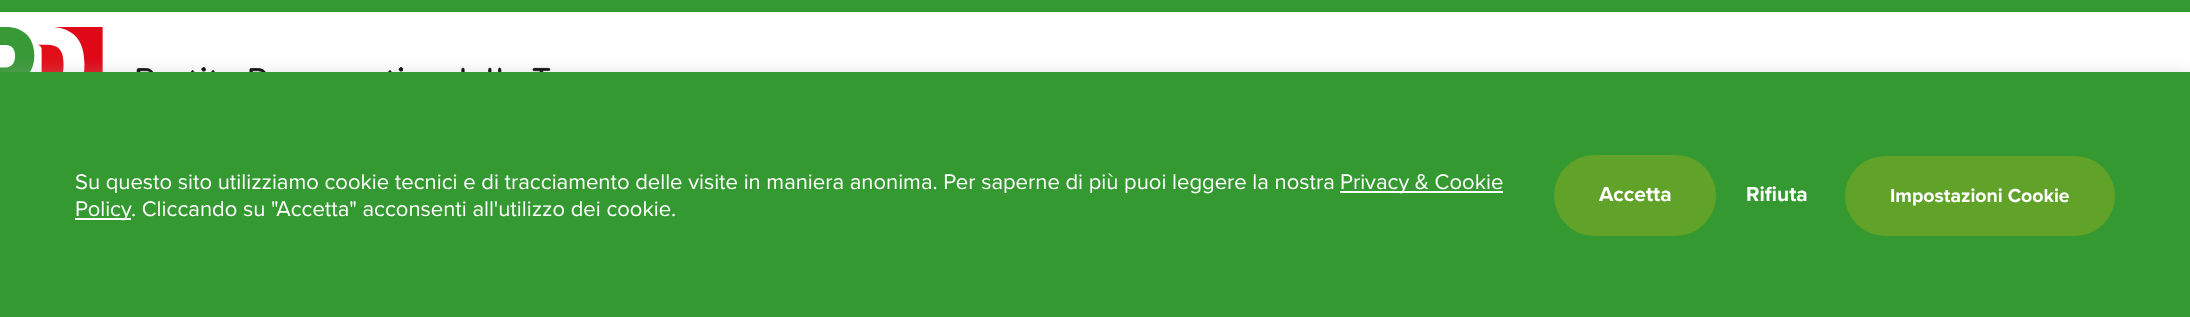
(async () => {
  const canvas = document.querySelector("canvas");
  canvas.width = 2190;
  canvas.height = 317;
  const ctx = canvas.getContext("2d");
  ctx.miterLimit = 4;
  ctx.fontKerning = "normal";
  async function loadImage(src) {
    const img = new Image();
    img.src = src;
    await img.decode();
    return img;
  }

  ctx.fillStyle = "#ffffff";
  ctx.fillRect(0, 0, 2190, 317);
  ctx.fillStyle = "#359931";
  ctx.fillRect(0, 0, 2190, 12);
  ctx.drawImage(await loadImage("img/1.png"), 0, 27, 551, 45);
  ctx.fillStyle = "rgba(172, 171, 171, 0.3)";
  ctx.filter = "blur(7.5px)";
  ctx.beginPath();
  ctx.rect(0, 71, 2190, 246);
  ctx.fill();
  ctx.filter = "none";
  for (const [x, y, w, h, color] of [
    [0, 72, 2190, 245, "#359931"],
    [1340, 191, 163, 2, "#ffffff"],
    [75, 218, 56, 2, "#ffffff"],
  ]) {
    ctx.fillStyle = color;
    ctx.fillRect(x, y, w, h);
  }
  ctx.fillStyle = "#61a229";
  ctx.beginPath();
  ctx.roundRect(1554, 155, 162, 81, 40.5);
  ctx.fill();
  ctx.beginPath();
  ctx.roundRect(1845, 156, 270, 80, 40);
  ctx.fill();
  ctx.font = "22px Proxima Nova";
  ctx.fillStyle = "#ffffff";
  for (const [text, x, y] of [
    ["Su questo sito utilizziamo cookie tecnici e di tracciamento delle visite in maniera anonima. Per saperne di più puoi leggere la nostra", 75, 189],
    ["Privacy & Cookie", 1340, 189],
    ["Policy", 75, 216],
    [". Cliccando su \"Accetta\" acconsenti all'utilizzo dei cookie.", 131, 216],
  ]) {
    ctx.fillText(text, x, y);
  }
  ctx.font = "bold 21px Proxima Nova";
  ctx.fillText("Accetta", 1599, 201);
  ctx.fillText("Rifiuta", 1746, 201);
  ctx.font = "bold 19.5px Proxima Nova";
  ctx.fillText("Impostazioni Cookie", 1890, 202);
})();
